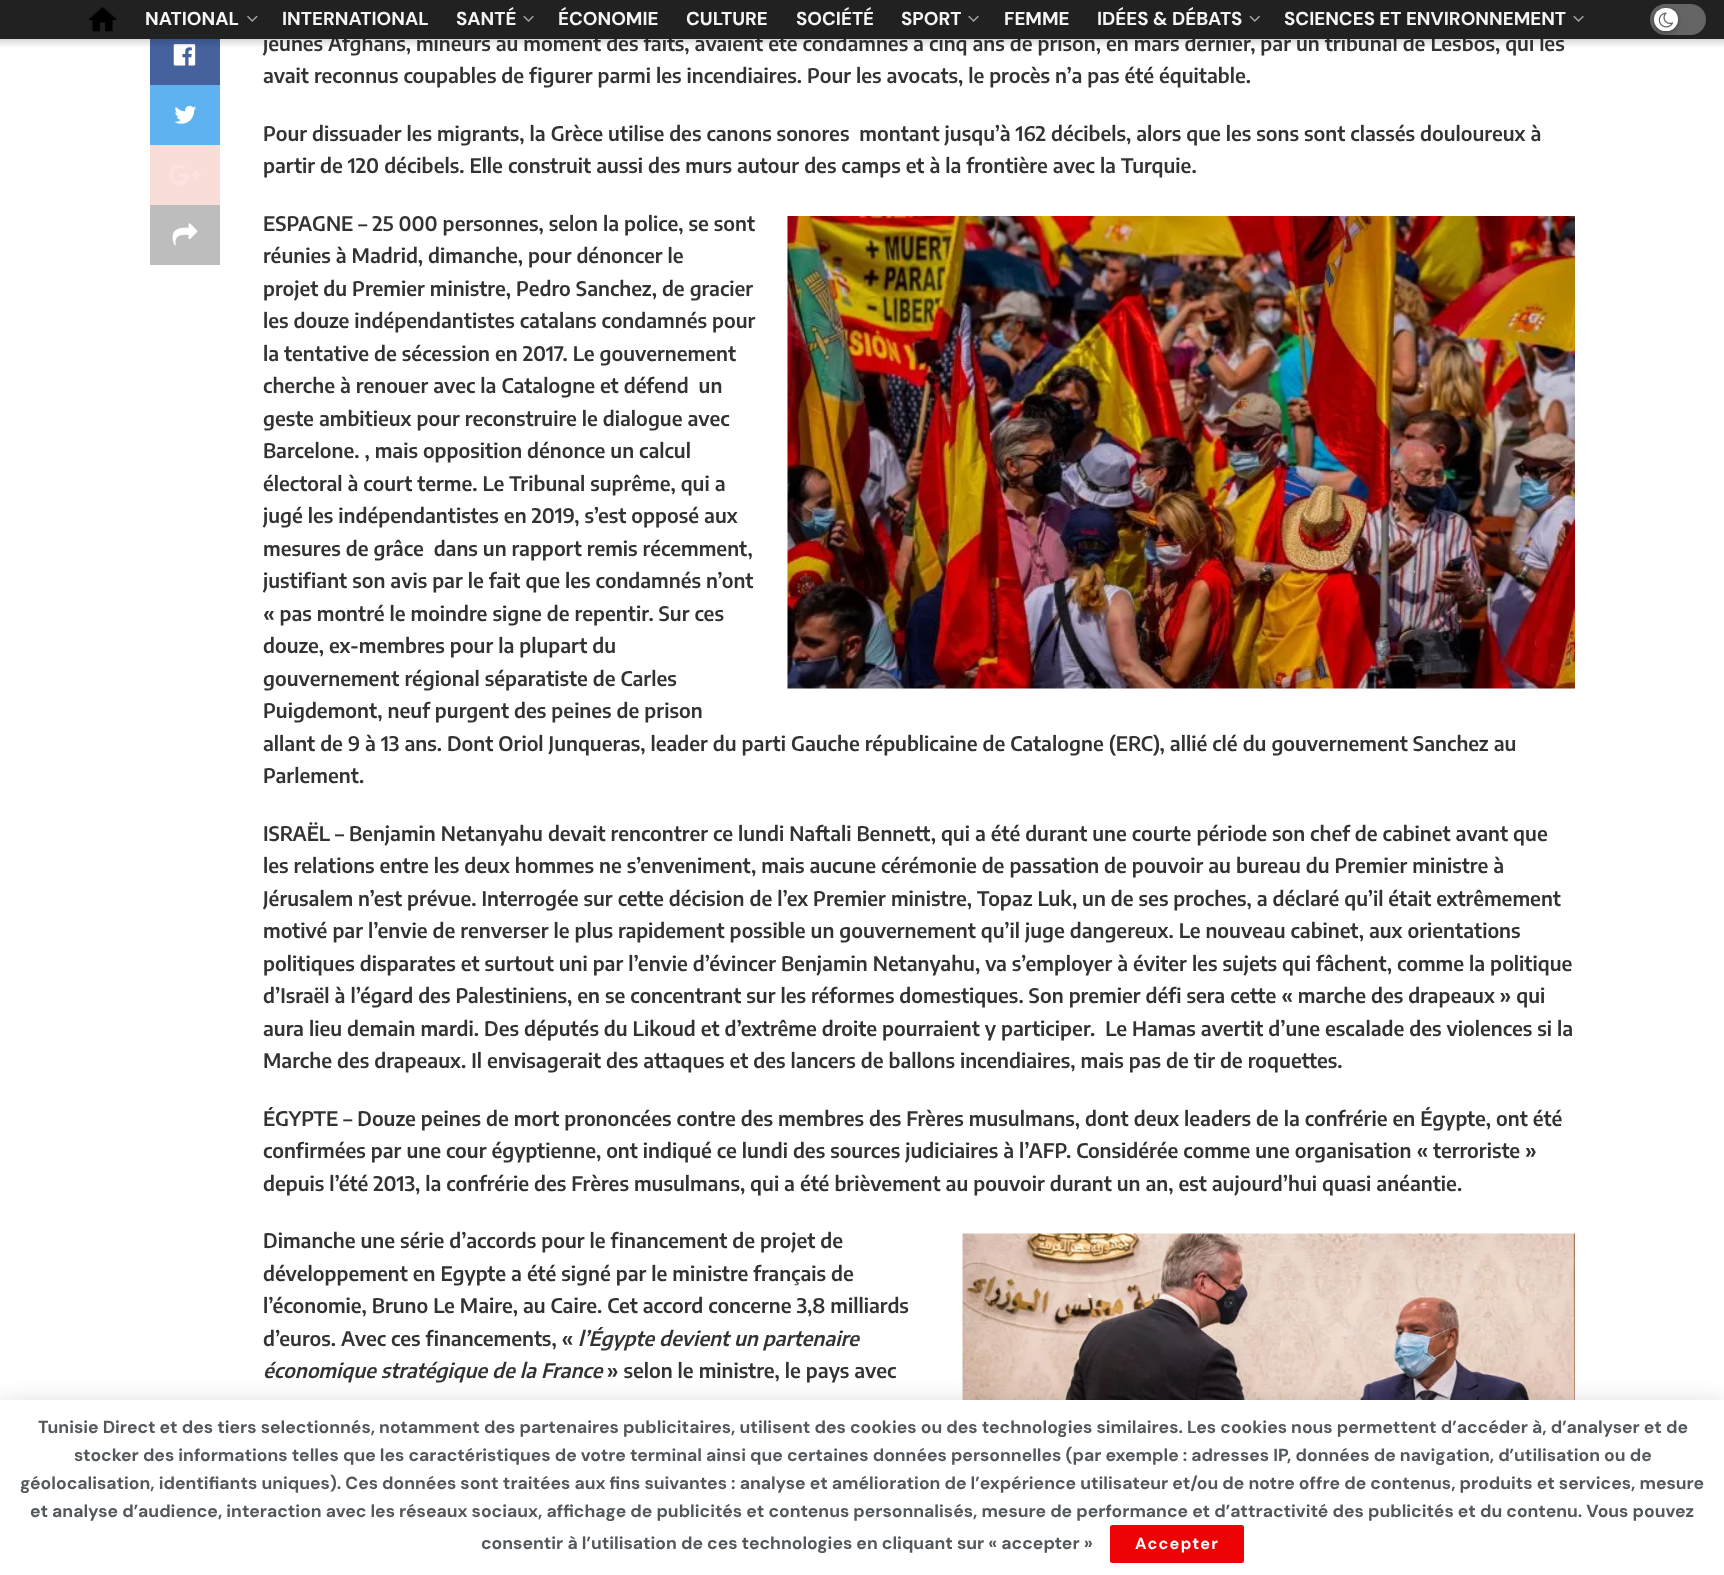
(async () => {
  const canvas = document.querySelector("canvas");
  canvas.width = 1724;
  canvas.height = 1575;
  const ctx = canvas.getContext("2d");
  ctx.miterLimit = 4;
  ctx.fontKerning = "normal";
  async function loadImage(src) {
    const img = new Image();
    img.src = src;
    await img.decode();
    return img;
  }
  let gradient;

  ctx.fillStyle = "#ffffff";
  ctx.fillRect(0, 0, 1724, 1575);
  ctx.fillStyle = "#45629f";
  ctx.fillRect(150, 39, 70, 46);
  ctx.drawImage(await loadImage("img/6.png"), 173, 44, 23, 22);
  ctx.fillStyle = "#5eb2ef";
  ctx.fillRect(150, 85, 70, 60);
  ctx.drawImage(await loadImage("img/7.png"), 174, 105, 23, 19);
  ctx.fillStyle = "#f9ddd9";
  ctx.fillRect(150, 145, 70, 60);
  ctx.drawImage(await loadImage("img/8.png"), 169, 165, 32, 20);
  ctx.fillStyle = "#bdbdbd";
  ctx.fillRect(150, 205, 70, 60);
  ctx.drawImage(await loadImage("img/9.png"), 172, 223, 26, 23);
  ctx.drawImage(await loadImage("img/10.png"), 787, 216, 788, 473);
  ctx.drawImage(await loadImage("img/11.png"), 962, 1233, 613, 167);
  ctx.fillStyle = "rgba(0, 0, 0, 0.15)";
  ctx.filter = "blur(12.5px)";
  ctx.beginPath();
  ctx.rect(0, 1403, 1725, 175);
  ctx.fill();
  ctx.filter = "none";
  ctx.fillStyle = "rgba(0, 0, 0, 0.2)";
  ctx.filter = "blur(0.5px)";
  ctx.beginPath();
  ctx.rect(0, 1400, 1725, 175);
  ctx.fill();
  ctx.filter = "none";
  ctx.fillStyle = "#ffffff";
  ctx.fillRect(0, 1400, 1724, 175);
  ctx.fillStyle = "#ed0306";
  ctx.beginPath();
  ctx.roundRect(1110, 1525, 134, 38, 2.5);
  ctx.fill();
  ctx.font = "100 20px Encode Sans Condensed";
  ctx.fillStyle = "#333333";
  ctx.fillText("jeunes Afghans, mineurs au moment des faits, avaient été condamnés à cinq ans de prison, en mars dernier, par un tribunal de Lesbos, qui les", 263, 51);
  ctx.fillStyle = "#212121";
  ctx.fillRect(0, 0, 1724, 39);
  ctx.fillStyle = "#646464";
  ctx.beginPath();
  ctx.roundRect(1650, 4, 56, 31, 15.5);
  ctx.fill();
  ctx.fillStyle = "rgba(0, 0, 0, 0.3)";
  ctx.filter = "blur(2px)";
  ctx.beginPath();
  ctx.roundRect(1654, 9, 24, 24, 12);
  ctx.fill();
  ctx.filter = "none";
  gradient = ctx.createLinearGradient(863, 39, 863, 48);
  gradient.addColorStop(0, "rgba(0, 0, 0, 0.15)");
  gradient.addColorStop(1, "rgba(0, 0, 0, 0)");
  ctx.fillStyle = gradient;
  ctx.fillRect(0, 39, 1724, 8);
  ctx.fillStyle = "#ffffff";
  ctx.beginPath();
  ctx.roundRect(1654, 8, 24, 23, 11.5);
  ctx.fill();
  ctx.drawImage(await loadImage("img/5.png"), 1658, 12, 16, 16);
  ctx.drawImage(await loadImage("img/3.png"), 1573, 15, 11, 7);
  ctx.font = "bold 18.75px DM Sans";
  ctx.fillStyle = "#f5f5f5";
  ctx.fillText("SCIENCES ET ENVIRONNEMENT", 1284, 25);
  ctx.drawImage(await loadImage("img/4.png"), 1249, 15, 11, 7);
  ctx.fillText("IDÉES & DÉBATS", 1097, 25);
  ctx.fillText("FEMME", 1004, 25);
  ctx.drawImage(await loadImage("img/3.png"), 968, 15, 11, 7);
  for (const [text, x, y] of [
    ["SPORT", 901, 25],
    ["SOCIÉTÉ", 796, 25],
    ["CULTURE", 686, 25],
    ["ÉCONOMIE", 558, 25],
  ]) {
    ctx.fillText(text, x, y);
  }
  ctx.drawImage(await loadImage("img/3.png"), 523, 15, 11, 7);
  ctx.fillText("SANTÉ", 456, 25);
  ctx.fillText("INTERNATIONAL", 282, 25);
  ctx.drawImage(await loadImage("img/2.png"), 247, 15, 11, 7);
  ctx.fillText("NATIONAL", 145, 25);
  ctx.drawImage(await loadImage("img/1.png"), 88, 7, 29, 25);
  ctx.font = "100 20px Encode Sans Condensed";
  ctx.fillStyle = "#333333";
  for (const [text, x, y] of [
    ["avait reconnus coupables de figurer parmi les incendiaires. Pour les avocats, le procès n’a pas été équitable.", 263, 83],
    ["Pour dissuader les migrants, la Grèce utilise des canons sonores  montant jusqu’à 162 décibels, alors que les sons sont classés douloureux à", 263, 141],
    ["partir de 120 décibels. Elle construit aussi des murs autour des camps et à la frontière avec la Turquie.", 263, 173],
    ["ESPAGNE – 25 000 personnes, selon la police, se sont", 263, 231],
    ["réunies à Madrid, dimanche, pour dénoncer le", 263, 263],
    ["projet du Premier ministre, Pedro Sanchez, de gracier", 263, 296],
    ["les douze indépendantistes catalans condamnés pour", 263, 328],
    ["la tentative de sécession en 2017. Le gouvernement", 263, 361],
    ["cherche à renouer avec la Catalogne et défend  un", 263, 393],
    ["geste ambitieux pour reconstruire le dialogue avec", 263, 426],
    ["Barcelone. , mais opposition dénonce un calcul", 263, 458],
    ["électoral à court terme. Le Tribunal suprême, qui a", 263, 491],
    ["jugé les indépendantistes en 2019, s’est opposé aux", 263, 523],
    ["mesures de grâce  dans un rapport remis récemment,", 263, 556],
    ["justifiant son avis par le fait que les condamnés n’ont", 263, 588],
    ["« pas montré le moindre signe de repentir. Sur ces", 263, 621],
    ["douze, ex-membres pour la plupart du", 263, 653],
    ["gouvernement régional séparatiste de Carles", 263, 686],
    ["Puigdemont, neuf purgent des peines de prison", 263, 718],
    ["allant de 9 à 13 ans. Dont Oriol Junqueras, leader du parti Gauche républicaine de Catalogne (ERC), allié clé du gouvernement Sanchez au", 263, 751],
    ["Parlement.", 263, 783],
    ["ISRAËL – Benjamin Netanyahu devait rencontrer ce lundi Naftali Bennett, qui a été durant une courte période son chef de cabinet avant que", 263, 841],
    ["les relations entre les deux hommes ne s’enveniment, mais aucune cérémonie de passation de pouvoir au bureau du Premier ministre à", 263, 873],
    ["Jérusalem n’est prévue. Interrogée sur cette décision de l’ex Premier ministre, Topaz Luk, un de ses proches, a déclaré qu’il était extrêmement", 263, 906],
    ["motivé par l’envie de renverser le plus rapidement possible un gouvernement qu’il juge dangereux. Le nouveau cabinet, aux orientations", 263, 938],
    ["politiques disparates et surtout uni par l’envie d’évincer Benjamin Netanyahu, va s’employer à éviter les sujets qui fâchent, comme la politique", 263, 971],
    ["d’Israël à l’égard des Palestiniens, en se concentrant sur les réformes domestiques. Son premier défi sera cette « marche des drapeaux » qui", 263, 1003],
    ["aura lieu demain mardi. Des députés du Likoud et d’extrême droite pourraient y participer.  Le Hamas avertit d’une escalade des violences si la", 263, 1036],
    ["Marche des drapeaux. Il envisagerait des attaques et des lancers de ballons incendiaires, mais pas de tir de roquettes.", 263, 1068],
    ["ÉGYPTE – Douze peines de mort prononcées contre des membres des Frères musulmans, dont deux leaders de la confrérie en Égypte, ont été", 263, 1126],
    ["confirmées par une cour égyptienne, ont indiqué ce lundi des sources judiciaires à l’AFP. Considérée comme une organisation « terroriste »", 263, 1158],
    ["depuis l’été 2013, la confrérie des Frères musulmans, qui a été brièvement au pouvoir durant un an, est aujourd’hui quasi anéantie.", 263, 1191],
    ["Dimanche une série d’accords pour le financement de projet de", 263, 1248],
    ["développement en Egypte a été signé par le ministre français de", 263, 1281],
    ["l’économie, Bruno Le Maire, au Caire. Cet accord concerne 3,8 milliards", 263, 1313],
    ["d’euros. Avec ces financements, «", 263, 1346],
  ]) {
    ctx.fillText(text, x, y);
  }
  ctx.font = "italic 100 20px Encode Sans Condensed";
  ctx.fillText("l’Égypte devient un partenaire", 578, 1346);
  ctx.fillText("économique stratégique de la France", 263, 1378);
  ctx.font = "100 20px Encode Sans Condensed";
  ctx.fillText("» selon le ministre, le pays avec", 607, 1378);
  ctx.font = "bold 17.5px DM Sans";
  ctx.fillStyle = "#53585c";
  for (const [text, x, y] of [
    ["Tunisie Direct et des tiers selectionnés, notamment des partenaires publicitaires, utilisent des cookies ou des technologies similaires. Les cookies nous permettent d’accéder à, d’analyser et de", 38, 1433],
    ["stocker des informations telles que les caractéristiques de votre terminal ainsi que certaines données personnelles (par exemple : adresses IP, données de navigation, d’utilisation ou de", 74, 1461],
    ["géolocalisation, identifiants uniques). Ces données sont traitées aux fins suivantes : analyse et amélioration de l’expérience utilisateur et/ou de notre offre de contenus, produits et services, mesure", 20, 1489],
    ["et analyse d’audience, interaction avec les réseaux sociaux, affichage de publicités et contenus personnalisés, mesure de performance et d’attractivité des publicités et du contenu. Vous pouvez", 30, 1517],
    ["consentir à l’utilisation de ces technologies en cliquant sur « accepter »", 481, 1549],
  ]) {
    ctx.fillText(text, x, y);
  }
  ctx.letterSpacing = "1.25px";
  ctx.font = "bold 16.25px DM Sans";
  ctx.fillStyle = "#ffffff";
  ctx.fillText("Accepter", 1135, 1549);
})();
